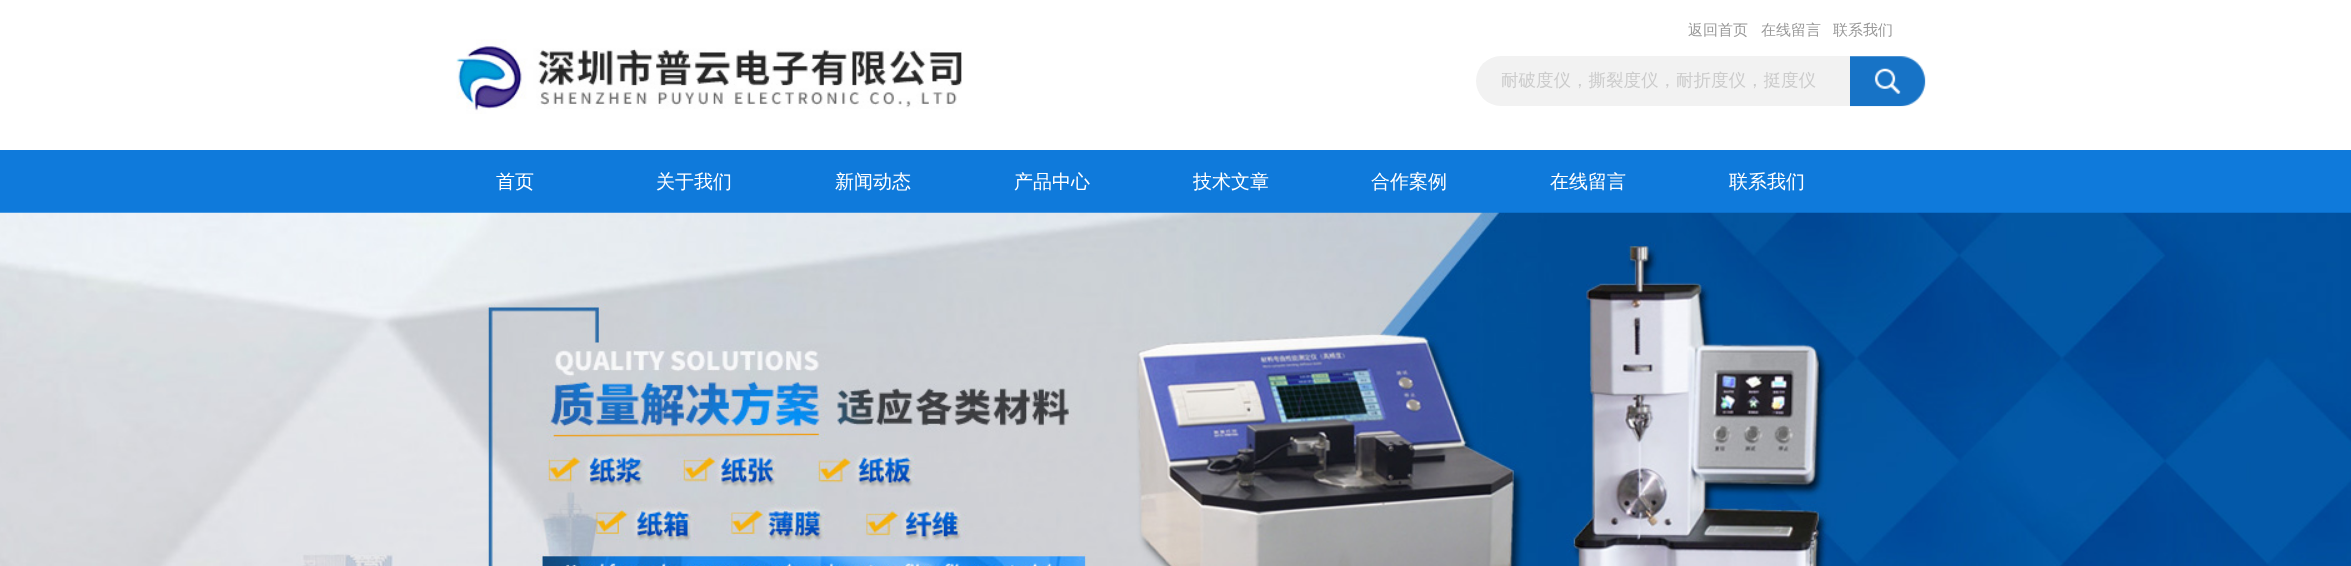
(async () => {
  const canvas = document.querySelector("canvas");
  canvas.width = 2351;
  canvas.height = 566;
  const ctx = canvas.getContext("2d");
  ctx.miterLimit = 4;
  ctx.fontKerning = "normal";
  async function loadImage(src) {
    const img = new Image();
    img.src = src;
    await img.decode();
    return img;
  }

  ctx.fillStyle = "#ffffff";
  ctx.fillRect(0, 0, 2351, 566);
  ctx.drawImage(await loadImage("img/1.png"), 456, 39, 506, 75);
  ctx.fillStyle = "#f2f2f2";
  ctx.beginPath();
  ctx.roundRect(1476, 56, 374, 50, [25, 0, 0, 25]);
  ctx.fill();
  ctx.drawImage(await loadImage("img/2.png"), 1850, 56, 76, 51);
  ctx.fillStyle = "#0f7adb";
  ctx.fillRect(0, 150, 2351, 63);
  ctx.drawImage(await loadImage("img/3.png"), 0, 212, 2351, 354);
  ctx.font = "500 15px WenQuanYi Zen Hei";
  ctx.fillStyle = "#999999";
  for (const [text, x, y] of [
    ["返回首页", 1688, 35],
    ["在线留言", 1761, 35],
    ["联系我们", 1833, 35],
  ]) {
    ctx.fillText(text, x, y);
  }
  ctx.font = "500 17.5px WenQuanYi Zen Hei";
  ctx.fillStyle = "#cccccc";
  ctx.fillText("耐破度仪，撕裂度仪，耐折度仪，挺度仪", 1501, 86);
  ctx.font = "500 19px WenQuanYi Zen Hei";
  ctx.fillStyle = "#ffffff";
  for (const [text, x, y] of [
    ["首页", 496, 188],
    ["关于我们", 656, 188],
    ["新闻动态", 835, 188],
    ["产品中心", 1014, 188],
    ["技术文章", 1193, 188],
    ["合作案例", 1371, 188],
    ["在线留言", 1550, 188],
    ["联系我们", 1729, 188],
  ]) {
    ctx.fillText(text, x, y);
  }
})();
